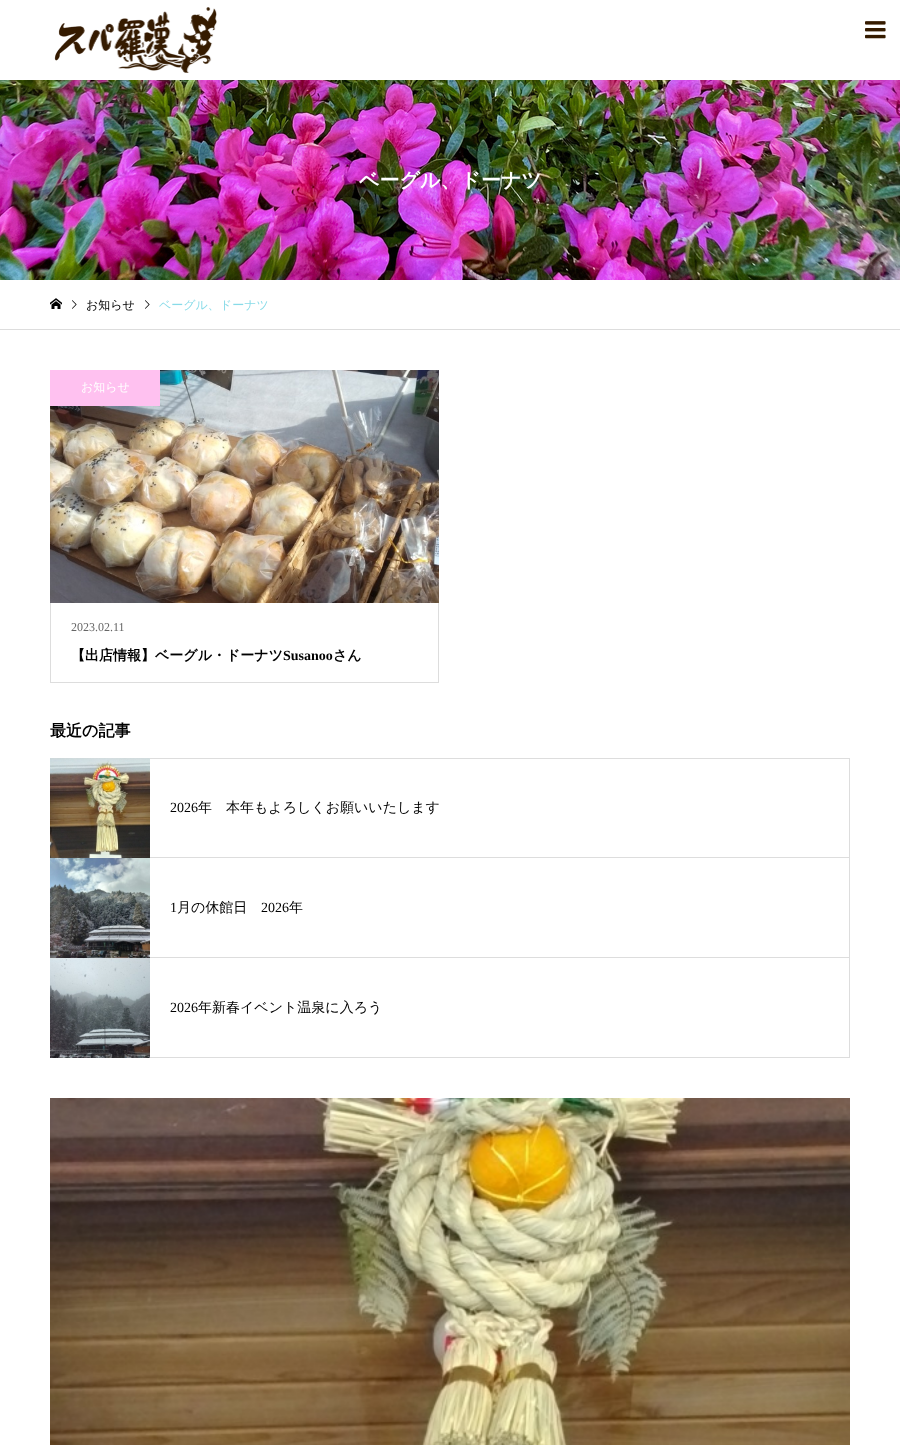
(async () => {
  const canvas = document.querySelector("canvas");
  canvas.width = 900;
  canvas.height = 1445;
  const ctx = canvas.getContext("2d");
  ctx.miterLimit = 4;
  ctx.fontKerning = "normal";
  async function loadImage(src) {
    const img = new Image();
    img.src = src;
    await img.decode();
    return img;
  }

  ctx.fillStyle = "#ffffff";
  ctx.fillRect(0, 0, 900, 1445);
  ctx.drawImage(await loadImage("img/1.png"), 54, 7, 163, 66);
  ctx.drawImage(await loadImage("img/2.png"), 865, 21, 21, 18);
  ctx.drawImage(await loadImage("img/3.png"), 0, 80, 900, 200);
  ctx.fillStyle = "#dddddd";
  ctx.fillRect(0, 329, 900, 1);
  ctx.drawImage(await loadImage("img/4.png"), 50, 298, 12, 11);
  ctx.drawImage(await loadImage("img/5.png"), 72, 300, 5, 9);
  ctx.drawImage(await loadImage("img/5.png"), 145, 300, 5, 9);
  ctx.drawImage(await loadImage("img/6.png"), 50, 370, 389, 233);
  for (const [x, y, w, h, color] of [
    [50, 370, 110, 36, "#ffc1f0"],
    [438, 603, 1, 80, "#dddddd"],
    [50, 682, 389, 1, "#dddddd"],
    [50, 603, 1, 80, "#dddddd"],
    [150, 758, 700, 1, "#dddddd"],
    [849, 758, 1, 300, "#dddddd"],
    [150, 857, 700, 1, "#dddddd"],
  ]) {
    ctx.fillStyle = color;
    ctx.fillRect(x, y, w, h);
  }
  ctx.drawImage(await loadImage("img/7.png"), 50, 758, 100, 100);
  ctx.drawImage(await loadImage("img/8.png"), 50, 858, 100, 100);
  ctx.fillRect(150, 957, 700, 1);
  ctx.drawImage(await loadImage("img/9.png"), 50, 958, 100, 100);
  ctx.fillRect(150, 1057, 700, 1);
  ctx.drawImage(await loadImage("img/10.png"), 50, 1098, 800, 347);
  ctx.font = "bold 20px WenQuanYi Zen Hei";
  ctx.fillStyle = "#ffffff";
  ctx.fillText("ベーグル、ドーナツ", 359, 187);
  ctx.font = "500 12px WenQuanYi Zen Hei";
  ctx.fillStyle = "#000000";
  ctx.fillText("お知らせ", 86, 309);
  ctx.fillStyle = "#88dbe8";
  ctx.fillText("ベーグル、ドーナツ", 159, 309);
  ctx.fillStyle = "#ffffff";
  ctx.fillText("お知らせ", 81, 391);
  ctx.font = "12px Liberation Serif";
  ctx.fillStyle = "#666666";
  ctx.fillText("2023.02.11", 71, 631);
  ctx.font = "bold 14px WenQuanYi Zen Hei";
  ctx.fillStyle = "#000000";
  ctx.fillText("【出店情報】ベーグル・ドーナツ", 71, 660);
  ctx.font = "bold 14px Liberation Serif";
  ctx.fillText("Susanoo", 283, 660);
  ctx.font = "bold 14px WenQuanYi Zen Hei";
  ctx.fillText("さん", 333, 660);
  ctx.font = "bold 16px WenQuanYi Zen Hei";
  ctx.fillText("最近の記事", 50, 736);
  ctx.font = "14px Liberation Serif";
  ctx.fillText("2026", 170, 812);
  ctx.font = "500 14px WenQuanYi Zen Hei";
  ctx.fillText("年　本年もよろしくお願いいたします", 198, 812);
  ctx.font = "14px Liberation Serif";
  ctx.fillText("1", 170, 912);
  ctx.font = "500 14px WenQuanYi Zen Hei";
  ctx.fillText("月の休館日", 177, 912);
  ctx.font = "14px Liberation Serif";
  ctx.fillText("2026", 261, 912);
  ctx.font = "500 14px WenQuanYi Zen Hei";
  ctx.fillText("年", 289, 912);
  ctx.font = "14px Liberation Serif";
  ctx.fillText("2026", 170, 1012);
  ctx.font = "500 14px WenQuanYi Zen Hei";
  ctx.fillText("年新春イベント温泉に入ろう", 198, 1012);
})();
